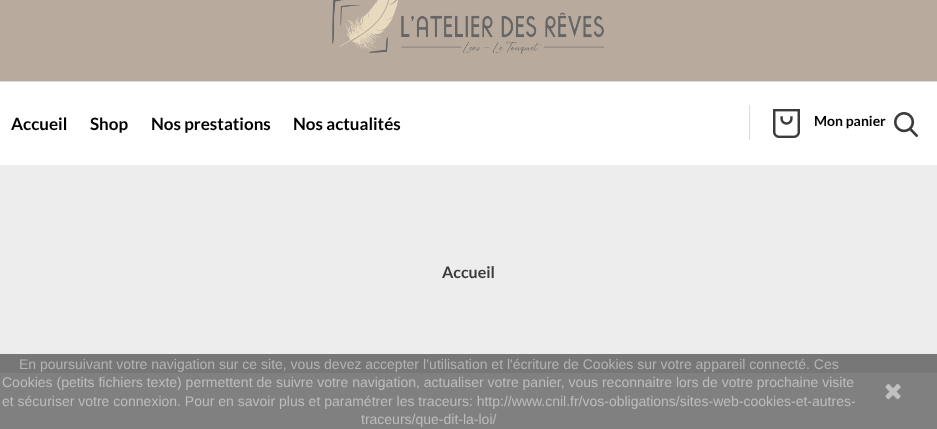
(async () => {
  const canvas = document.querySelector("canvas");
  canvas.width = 937;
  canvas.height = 429;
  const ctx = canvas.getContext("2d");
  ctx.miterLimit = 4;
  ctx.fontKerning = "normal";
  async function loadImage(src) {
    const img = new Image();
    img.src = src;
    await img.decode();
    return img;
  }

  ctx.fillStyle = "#808080";
  ctx.fillRect(0, 0, 937, 429);
  ctx.fillStyle = "#b8ab9e";
  ctx.fillRect(0, 0, 937, 81);
  ctx.drawImage(await loadImage("img/1.png"), 332, 0, 272, 55);
  for (const [x, y, w, h, color] of [
    [0, 82, 937, 83, "#ffffff"],
    [0, 81, 937, 1, "#dbdbdb"],
    [749, 105, 1, 35, "#dbdbdb"],
  ]) {
    ctx.fillStyle = color;
    ctx.fillRect(x, y, w, h);
  }
  ctx.drawImage(await loadImage("img/2.png"), 773, 109, 27, 29);
  ctx.drawImage(await loadImage("img/3.png"), 894, 112, 24, 25);
  ctx.fillStyle = "#ededed";
  ctx.fillRect(0, 165, 937, 189);
  ctx.fillStyle = "#777777";
  ctx.fillRect(0, 354, 937, 19);
  ctx.drawImage(await loadImage("img/4.png"), 885, 384, 16, 16);
  ctx.font = "bold 17px Lato";
  ctx.fillStyle = "#000000";
  for (const [text, x, y] of [
    ["Accueil", 11, 130],
    ["Shop", 90, 130],
    ["Nos prestations", 151, 130],
    ["Nos actualités", 293, 130],
  ]) {
    ctx.fillText(text, x, y);
  }
  ctx.font = "bold 14px Lato";
  ctx.fillText("Mon panier", 814, 126);
  ctx.font = "bold 16px Lato";
  ctx.fillStyle = "#3b3b3b";
  ctx.fillText("Accueil", 442, 278);
  ctx.font = "14px Liberation Sans";
  ctx.fillStyle = "#b3b3b3";
  ctx.fillText("En poursuivant votre navigation sur ce site, vous devez accepter l’utilisation et l'écriture de Cookies sur votre appareil connecté. Ces", 19, 369);
  ctx.fillStyle = "#bcbcbc";
  for (const [text, x, y] of [
    ["Cookies (petits fichiers texte) permettent de suivre votre navigation, actualiser votre panier, vous reconnaitre lors de votre prochaine visite", 2, 387],
    ["et sécuriser votre connexion. Pour en savoir plus et paramétrer les traceurs: http://www.cnil.fr/vos-obligations/sites-web-cookies-et-autres-", 2, 406],
    ["traceurs/que-dit-la-loi/", 361, 424],
  ]) {
    ctx.fillText(text, x, y);
  }
})();
